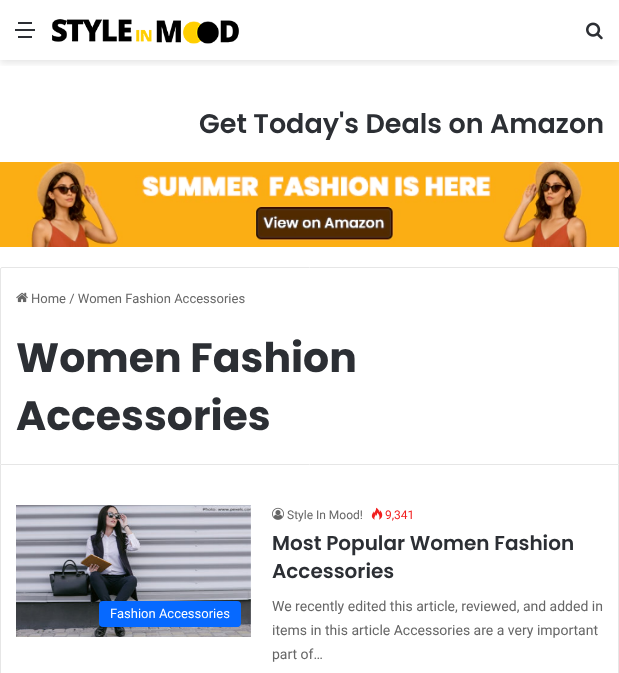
(async () => {
  const canvas = document.querySelector("canvas");
  canvas.width = 619;
  canvas.height = 673;
  const ctx = canvas.getContext("2d");
  ctx.miterLimit = 4;
  ctx.fontKerning = "normal";
  async function loadImage(src) {
    const img = new Image();
    img.src = src;
    await img.decode();
    return img;
  }

  ctx.fillStyle = "#ffffff";
  ctx.fillRect(0, 0, 619, 673);
  ctx.save();
  ctx.beginPath();
  ctx.rect(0, 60, 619, 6);
  ctx.clip();
  ctx.fillStyle = "rgba(0, 0, 0, 0.1)";
  ctx.filter = "blur(3.5px)";
  ctx.beginPath();
  ctx.rect(0, 3, 619, 60);
  ctx.fill();
  ctx.filter = "none";
  ctx.restore();
  for (const [x, y, w, h, color] of [
    [15, 29, 20, 2, "#2c2f34"],
    [18, 22, 14, 2, "#2c2f34"],
    [18, 36, 14, 2, "#2c2f34"],
  ]) {
    ctx.fillStyle = color;
    ctx.fillRect(x, y, w, h);
  }
  ctx.drawImage(await loadImage("img/1.png"), 52, 19, 187, 25);
  ctx.drawImage(await loadImage("img/2.png"), 586, 22, 17, 18);
  ctx.drawImage(await loadImage("img/3.png"), 0, 162, 619, 85);
  ctx.beginPath();
  ctx.roundRect(0.5, 267.5, 618, 197, [1.5, 1.5, 0, 0]);
  ctx.strokeStyle = "#e6e6e6";
  ctx.stroke();
  ctx.drawImage(await loadImage("img/4.png"), 16, 292, 12, 11);
  ctx.fillStyle = "#e6e6e6";
  ctx.fillRect(618, 465, 1, 208);
  ctx.fillRect(0, 465, 1, 208);
  ctx.drawImage(await loadImage("img/5.png"), 16, 505, 235, 132);
  ctx.fillStyle = "#0669ff";
  ctx.beginPath();
  ctx.roundRect(99, 601, 142, 26, 4);
  ctx.fill();
  ctx.drawImage(await loadImage("img/6.png"), 272, 507, 12, 13);
  ctx.drawImage(await loadImage("img/7.png"), 371, 507, 12, 13);
  ctx.font = "600 27px Poppins";
  ctx.fillStyle = "#2c2f34";
  ctx.fillText("Get Today's Deals on Amazon", 199, 133);
  ctx.font = "13px Roboto";
  ctx.fillStyle = "#666666";
  ctx.fillText("Home / Women Fashion Accessories", 31, 303);
  ctx.font = "bold 41px Poppins";
  ctx.fillStyle = "#2c2f34";
  ctx.fillText("Women Fashion", 16, 372);
  ctx.fillText("Accessories", 16, 430);
  ctx.font = "13px Roboto";
  ctx.fillStyle = "#ffffff";
  ctx.fillText("Fashion Accessories", 110, 618);
  ctx.font = "12px Roboto";
  ctx.fillStyle = "#666666";
  ctx.fillText("Style In Mood!", 287, 519);
  ctx.fillStyle = "#f11e1e";
  ctx.fillText("9,341", 385, 519);
  ctx.font = "600 20px Poppins";
  ctx.fillStyle = "#2c2f34";
  ctx.fillText("Most Popular Women Fashion", 272, 550);
  ctx.fillText("Accessories", 272, 578);
  ctx.font = "14px Roboto";
  ctx.fillStyle = "#666666";
  for (const [text, x, y] of [
    ["We recently edited this article, reviewed, and added in", 272, 611],
    ["items in this article Accessories are a very important", 272, 635],
    ["part of…", 272, 659],
  ]) {
    ctx.fillText(text, x, y);
  }
})();
